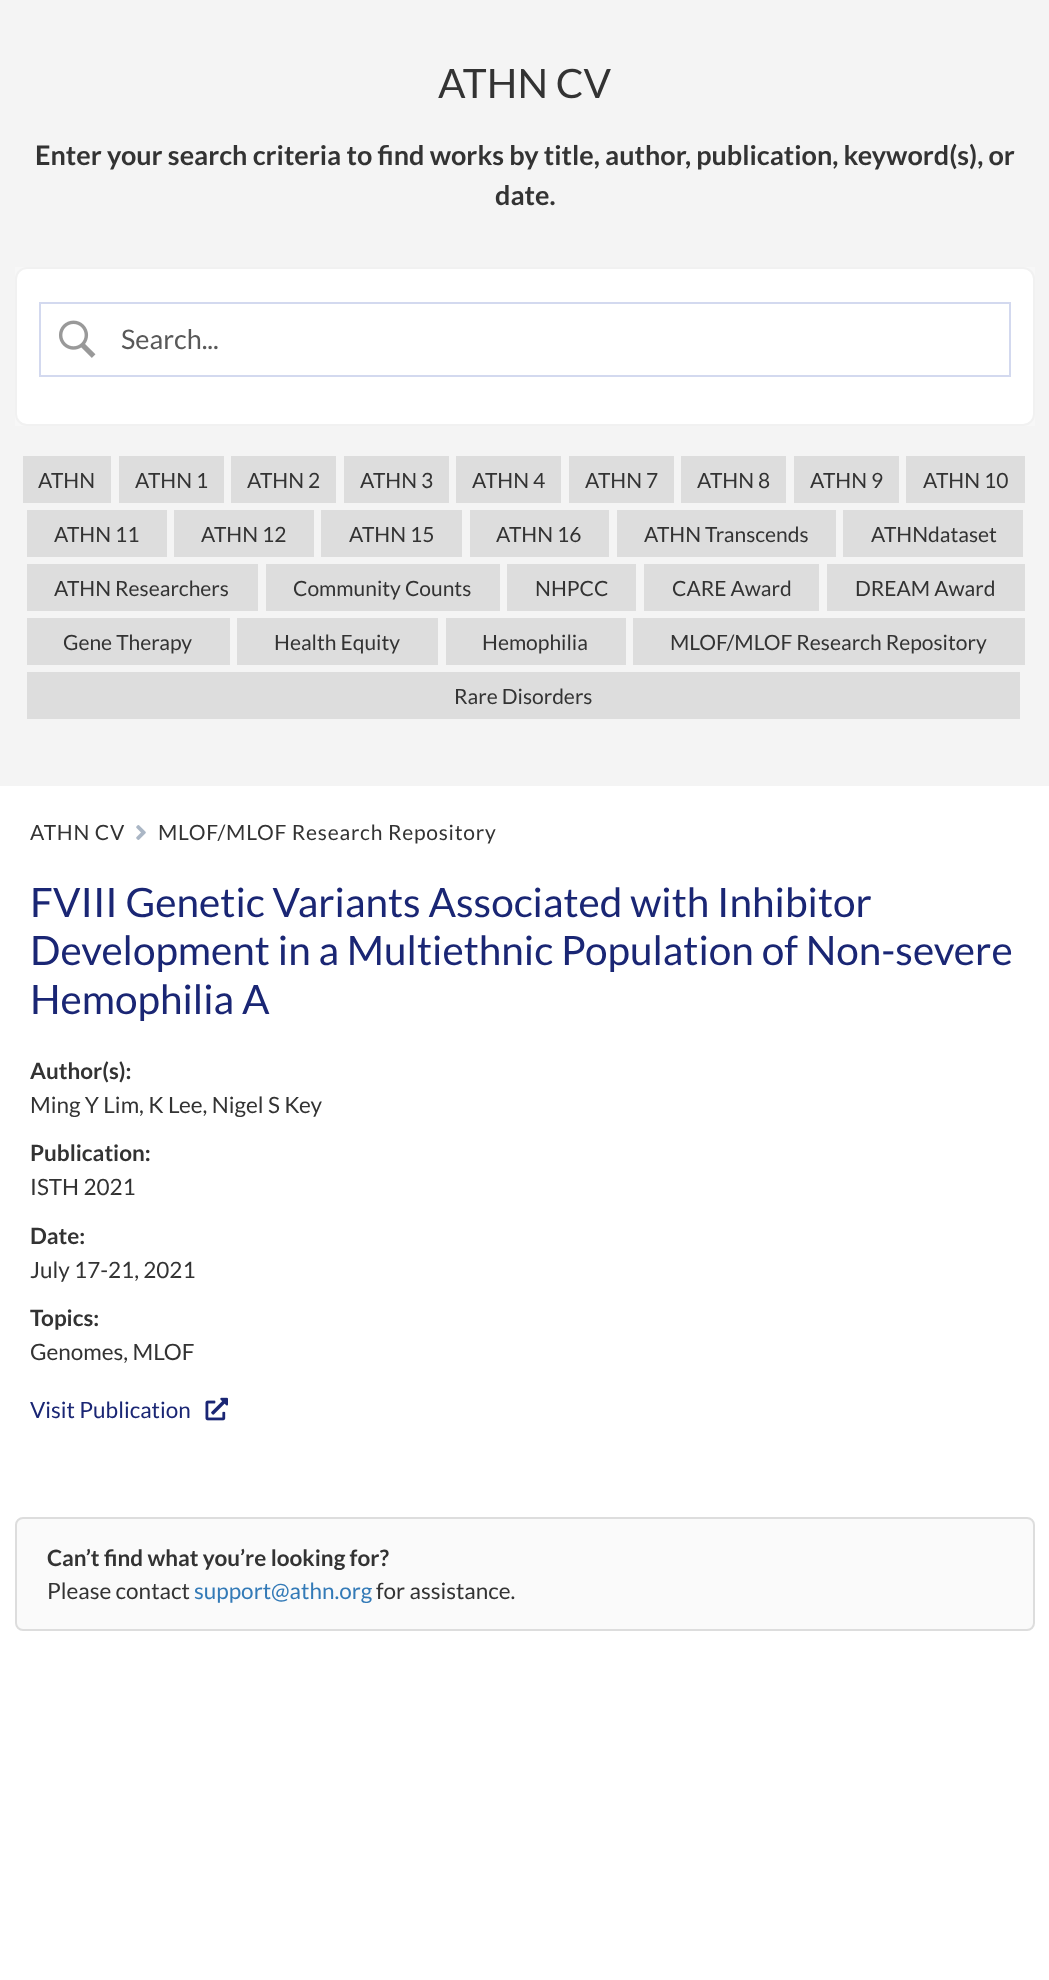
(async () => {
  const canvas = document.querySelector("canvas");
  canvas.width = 1049;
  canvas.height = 1980;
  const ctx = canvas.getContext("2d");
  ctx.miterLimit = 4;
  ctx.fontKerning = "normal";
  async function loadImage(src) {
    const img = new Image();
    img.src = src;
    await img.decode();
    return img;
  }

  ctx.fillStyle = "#ffffff";
  ctx.fillRect(0, 0, 1049, 1980);
  ctx.fillStyle = "#f4f4f4";
  ctx.fillRect(0, 0, 1049, 786);
  ctx.fillStyle = "#f7f7f7";
  ctx.fillRect(15, 267, 1020, 159);
  ctx.fillStyle = "#ffffff";
  ctx.beginPath();
  ctx.roundRect(16, 268, 1018, 157, 11);
  ctx.fill();
  ctx.strokeStyle = "#f1f1f1";
  ctx.lineWidth = 2;
  ctx.stroke();
  ctx.strokeStyle = "#d3d9ef";
  ctx.strokeRect(40, 303, 970, 73);
  ctx.drawImage(await loadImage("img/1.png"), 59, 320, 37, 38);
  for (const [x, y, w, h, color] of [
    [23, 456, 88, 47, "#dddddd"],
    [119, 456, 105, 47, "#dddddd"],
    [231, 456, 105, 47, "#dddddd"],
    [344, 456, 105, 47, "#dddddd"],
    [456, 456, 105, 47, "#dddddd"],
    [569, 456, 105, 47, "#dddddd"],
    [681, 456, 105, 47, "#dddddd"],
    [794, 456, 105, 47, "#dddddd"],
    [906, 456, 119, 47, "#dddddd"],
    [27, 510, 140, 47, "#dddddd"],
    [174, 510, 140, 47, "#dddddd"],
    [321, 510, 141, 47, "#dddddd"],
    [470, 510, 139, 47, "#dddddd"],
    [617, 510, 219, 47, "#dddddd"],
    [843, 510, 180, 47, "#dddddd"],
    [27, 564, 231, 47, "#dddddd"],
    [266, 564, 234, 47, "#dddddd"],
    [507, 564, 129, 47, "#dddddd"],
    [644, 564, 175, 47, "#dddddd"],
    [827, 564, 198, 47, "#dddddd"],
    [27, 618, 203, 47, "#dddddd"],
    [237, 618, 201, 47, "#dddddd"],
    [446, 618, 180, 47, "#dddddd"],
    [633, 618, 392, 47, "#dddddd"],
    [27, 672, 993, 47, "#dddddd"],
  ]) {
    ctx.fillStyle = color;
    ctx.fillRect(x, y, w, h);
  }
  ctx.drawImage(await loadImage("img/2.png"), 136, 825, 10, 15);
  ctx.drawImage(await loadImage("img/3.png"), 205, 1397, 23, 24);
  ctx.fillStyle = "#fafafa";
  ctx.beginPath();
  ctx.roundRect(16, 1518, 1018, 112, 7);
  ctx.fill();
  ctx.strokeStyle = "#dddddd";
  ctx.stroke();
  ctx.font = "40.5px Lato";
  ctx.fillStyle = "#333333";
  ctx.fillText("ATHN CV", 438, 98);
  ctx.font = "bold 27px Lato";
  ctx.fillText("Enter your search criteria to find works by title, author, publication, keyword(s), or", 35, 165);
  ctx.fillText("date.", 495, 205);
  ctx.font = "27px Lato";
  ctx.fillStyle = "#595959";
  ctx.fillText("Search...", 121, 349);
  ctx.font = "21px Lato";
  ctx.fillStyle = "#333333";
  for (const [text, x, y] of [
    ["ATHN", 38, 488],
    ["ATHN 1", 135, 488],
    ["ATHN 2", 247, 488],
    ["ATHN 3", 360, 488],
    ["ATHN 4", 472, 488],
    ["ATHN 7", 585, 488],
    ["ATHN 8", 697, 488],
    ["ATHN 9", 810, 488],
    ["ATHN 10", 923, 488],
    ["ATHN 11", 54, 542],
    ["ATHN 12", 201, 542],
    ["ATHN 15", 349, 542],
    ["ATHN 16", 496, 542],
    ["ATHN Transcends", 644, 542],
    ["ATHNdataset", 871, 542],
    ["ATHN Researchers", 54, 596],
    ["Community Counts", 293, 596],
    ["NHPCC", 535, 596],
    ["CARE Award", 672, 596],
    ["DREAM Award", 855, 596],
    ["Gene Therapy", 63, 650],
    ["Health Equity", 274, 650],
    ["Hemophilia", 482, 650],
    ["MLOF/MLOF Research Repository", 670, 650],
    ["Rare Disorders", 454, 704],
  ]) {
    ctx.fillText(text, x, y);
  }
  ctx.letterSpacing = "0.75px";
  ctx.fillText("ATHN CV", 30, 840);
  ctx.fillText("MLOF/MLOF Research Repository", 158, 840);
  ctx.letterSpacing = "0px";
  ctx.font = "40.5px Lato";
  ctx.fillStyle = "#1a2674";
  for (const [text, x, y] of [
    ["FVIII Genetic Variants Associated with Inhibitor", 30, 917],
    ["Development in a Multiethnic Population of Non-severe", 30, 965],
    ["Hemophilia A", 30, 1014],
  ]) {
    ctx.fillText(text, x, y);
  }
  ctx.font = "bold 22.5px Lato";
  ctx.fillStyle = "#333333";
  ctx.fillText("Author(s):", 30, 1079);
  ctx.font = "22.5px Lato";
  ctx.fillText("Ming Y Lim, K Lee, Nigel S Key", 30, 1113);
  ctx.font = "bold 22.5px Lato";
  ctx.fillText("Publication:", 30, 1161);
  ctx.font = "22.5px Lato";
  ctx.fillText("ISTH 2021", 30, 1195);
  ctx.font = "bold 22.5px Lato";
  ctx.fillText("Date:", 30, 1244);
  ctx.font = "22.5px Lato";
  ctx.fillText("July 17-21, 2021", 30, 1278);
  ctx.font = "bold 22.5px Lato";
  ctx.fillText("Topics:", 30, 1326);
  ctx.font = "22.5px Lato";
  ctx.fillText("Genomes, MLOF", 30, 1360);
  ctx.fillStyle = "#1a2674";
  ctx.fillText("Visit Publication", 30, 1418);
  ctx.font = "bold 22.5px Lato";
  ctx.fillStyle = "#333333";
  ctx.fillText("Can’t find what you’re looking for?", 47, 1566);
  ctx.font = "22.5px Lato";
  ctx.fillText("Please contact", 47, 1599);
  ctx.fillStyle = "#337ab7";
  ctx.fillText("support@athn.org", 194, 1599);
  ctx.fillStyle = "#333333";
  ctx.fillText("for assistance.", 376, 1599);
})();
